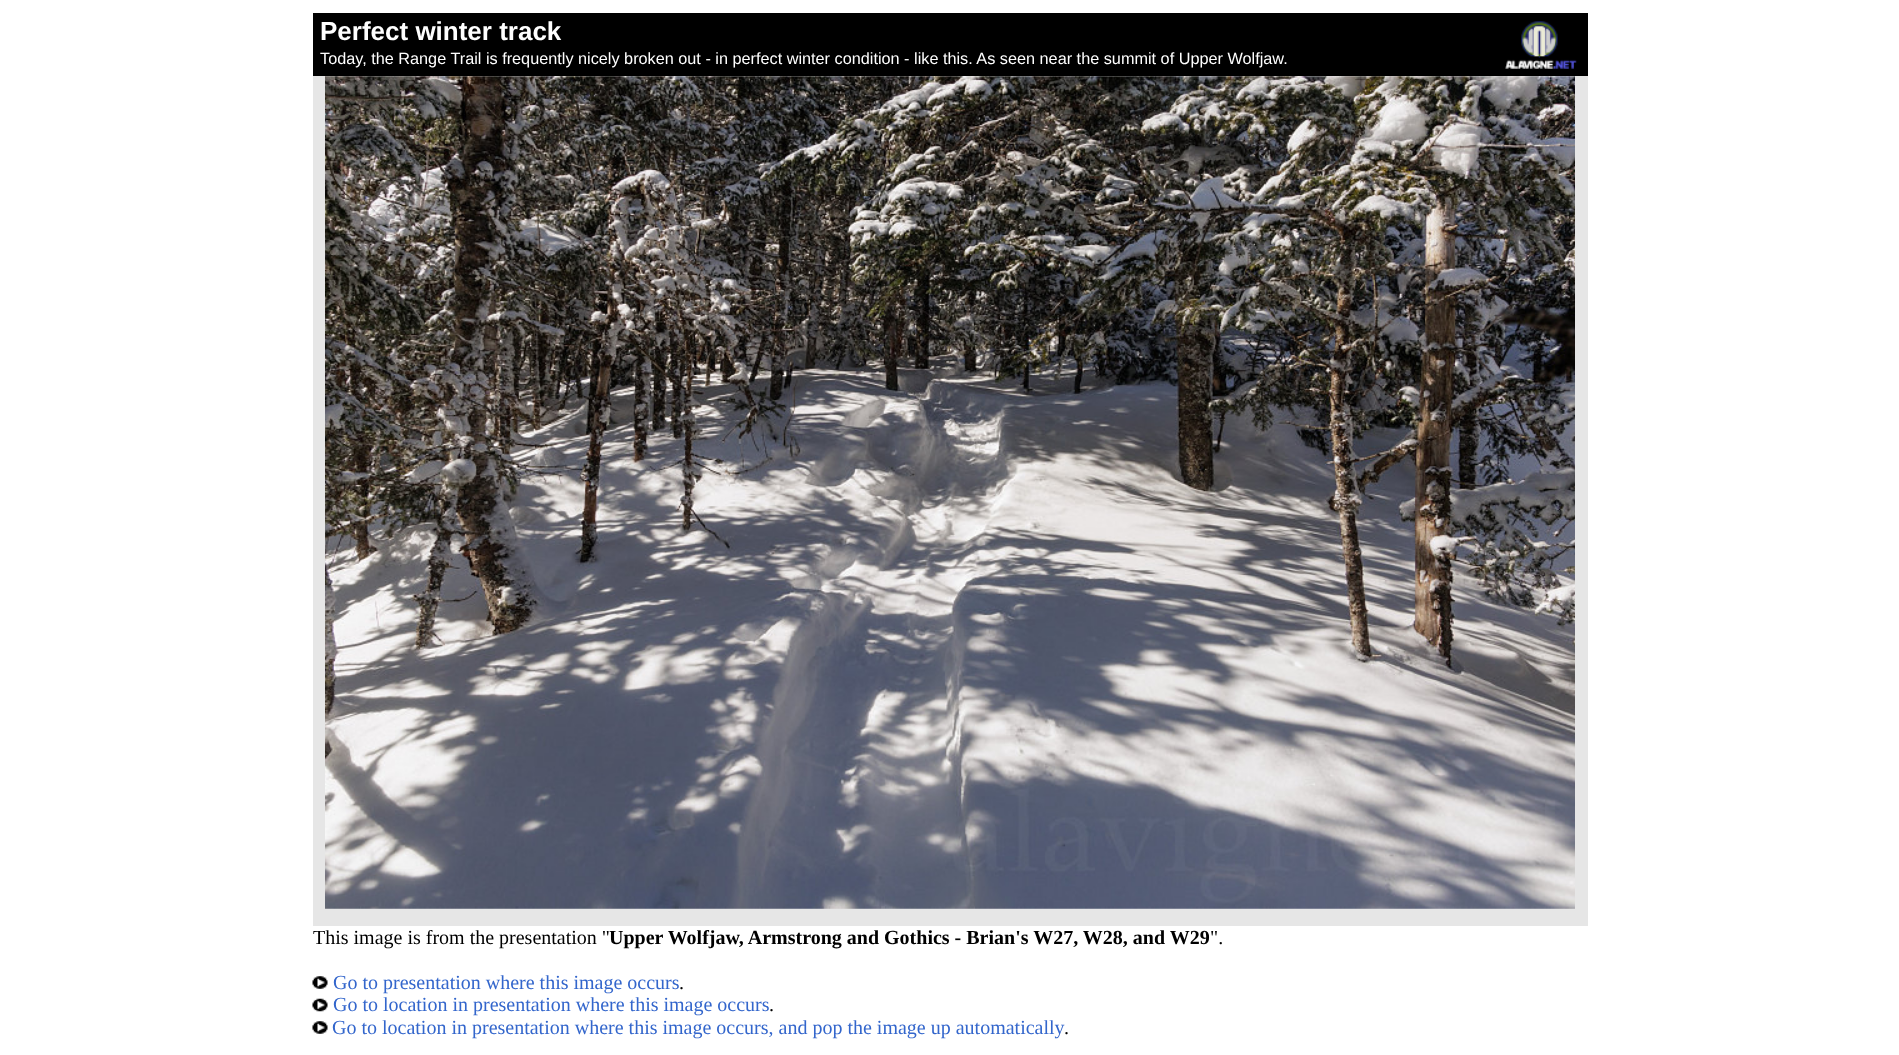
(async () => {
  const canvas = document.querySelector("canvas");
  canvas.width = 1899;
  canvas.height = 1055;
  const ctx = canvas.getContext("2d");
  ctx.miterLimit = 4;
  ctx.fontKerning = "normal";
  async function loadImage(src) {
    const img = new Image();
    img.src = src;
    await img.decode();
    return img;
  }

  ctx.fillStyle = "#ffffff";
  ctx.fillRect(0, 0, 1899, 1055);
  ctx.fillStyle = "#000000";
  ctx.fillRect(313, 13, 1275, 63);
  ctx.drawImage(await loadImage("img/1.png"), 1505, 21, 72, 48);
  ctx.fillStyle = "#e6e6e6";
  ctx.fillRect(313, 76, 1275, 850);
  ctx.drawImage(await loadImage("img/2.png"), 325, 76, 1250, 833);
  ctx.drawImage(await loadImage("img/3.png"), 312, 976, 16, 13);
  ctx.drawImage(await loadImage("img/4.png"), 312, 998, 16, 14);
  ctx.drawImage(await loadImage("img/3.png"), 312, 1021, 16, 13);
  ctx.font = "bold 26px Liberation Sans";
  ctx.fillStyle = "#ffffff";
  ctx.fillText("Perfect winter track", 320, 40);
  ctx.font = "16.25px Liberation Sans";
  ctx.fillText("Today, the Range Trail is frequently nicely broken out - in perfect winter condition - like this. As seen near the summit of Upper Wolfjaw.", 320, 64);
  ctx.font = "20px Liberation Serif";
  ctx.fillStyle = "#000000";
  ctx.fillText("This image is from the presentation \"", 313, 944);
  ctx.font = "bold 20px Liberation Serif";
  ctx.fillText("Upper Wolfjaw, Armstrong and Gothics - Brian's W27, W28, and W29", 609, 944);
  ctx.font = "20px Liberation Serif";
  ctx.fillText("\".", 1210, 944);
  ctx.fillStyle = "#3366cc";
  ctx.fillText("Go to presentation where this image occurs", 333, 989);
  ctx.fillStyle = "#000000";
  ctx.fillText(".", 679, 989);
  ctx.fillStyle = "#3366cc";
  ctx.fillText("Go to location in presentation where this image occurs", 333, 1011);
  ctx.fillStyle = "#000000";
  ctx.fillText(".", 769, 1011);
  ctx.fillStyle = "#3366cc";
  ctx.fillText("Go to location in presentation where this image occurs, and pop the image up automatically", 332, 1034);
  ctx.fillStyle = "#000000";
  ctx.fillText(".", 1064, 1034);
})();
